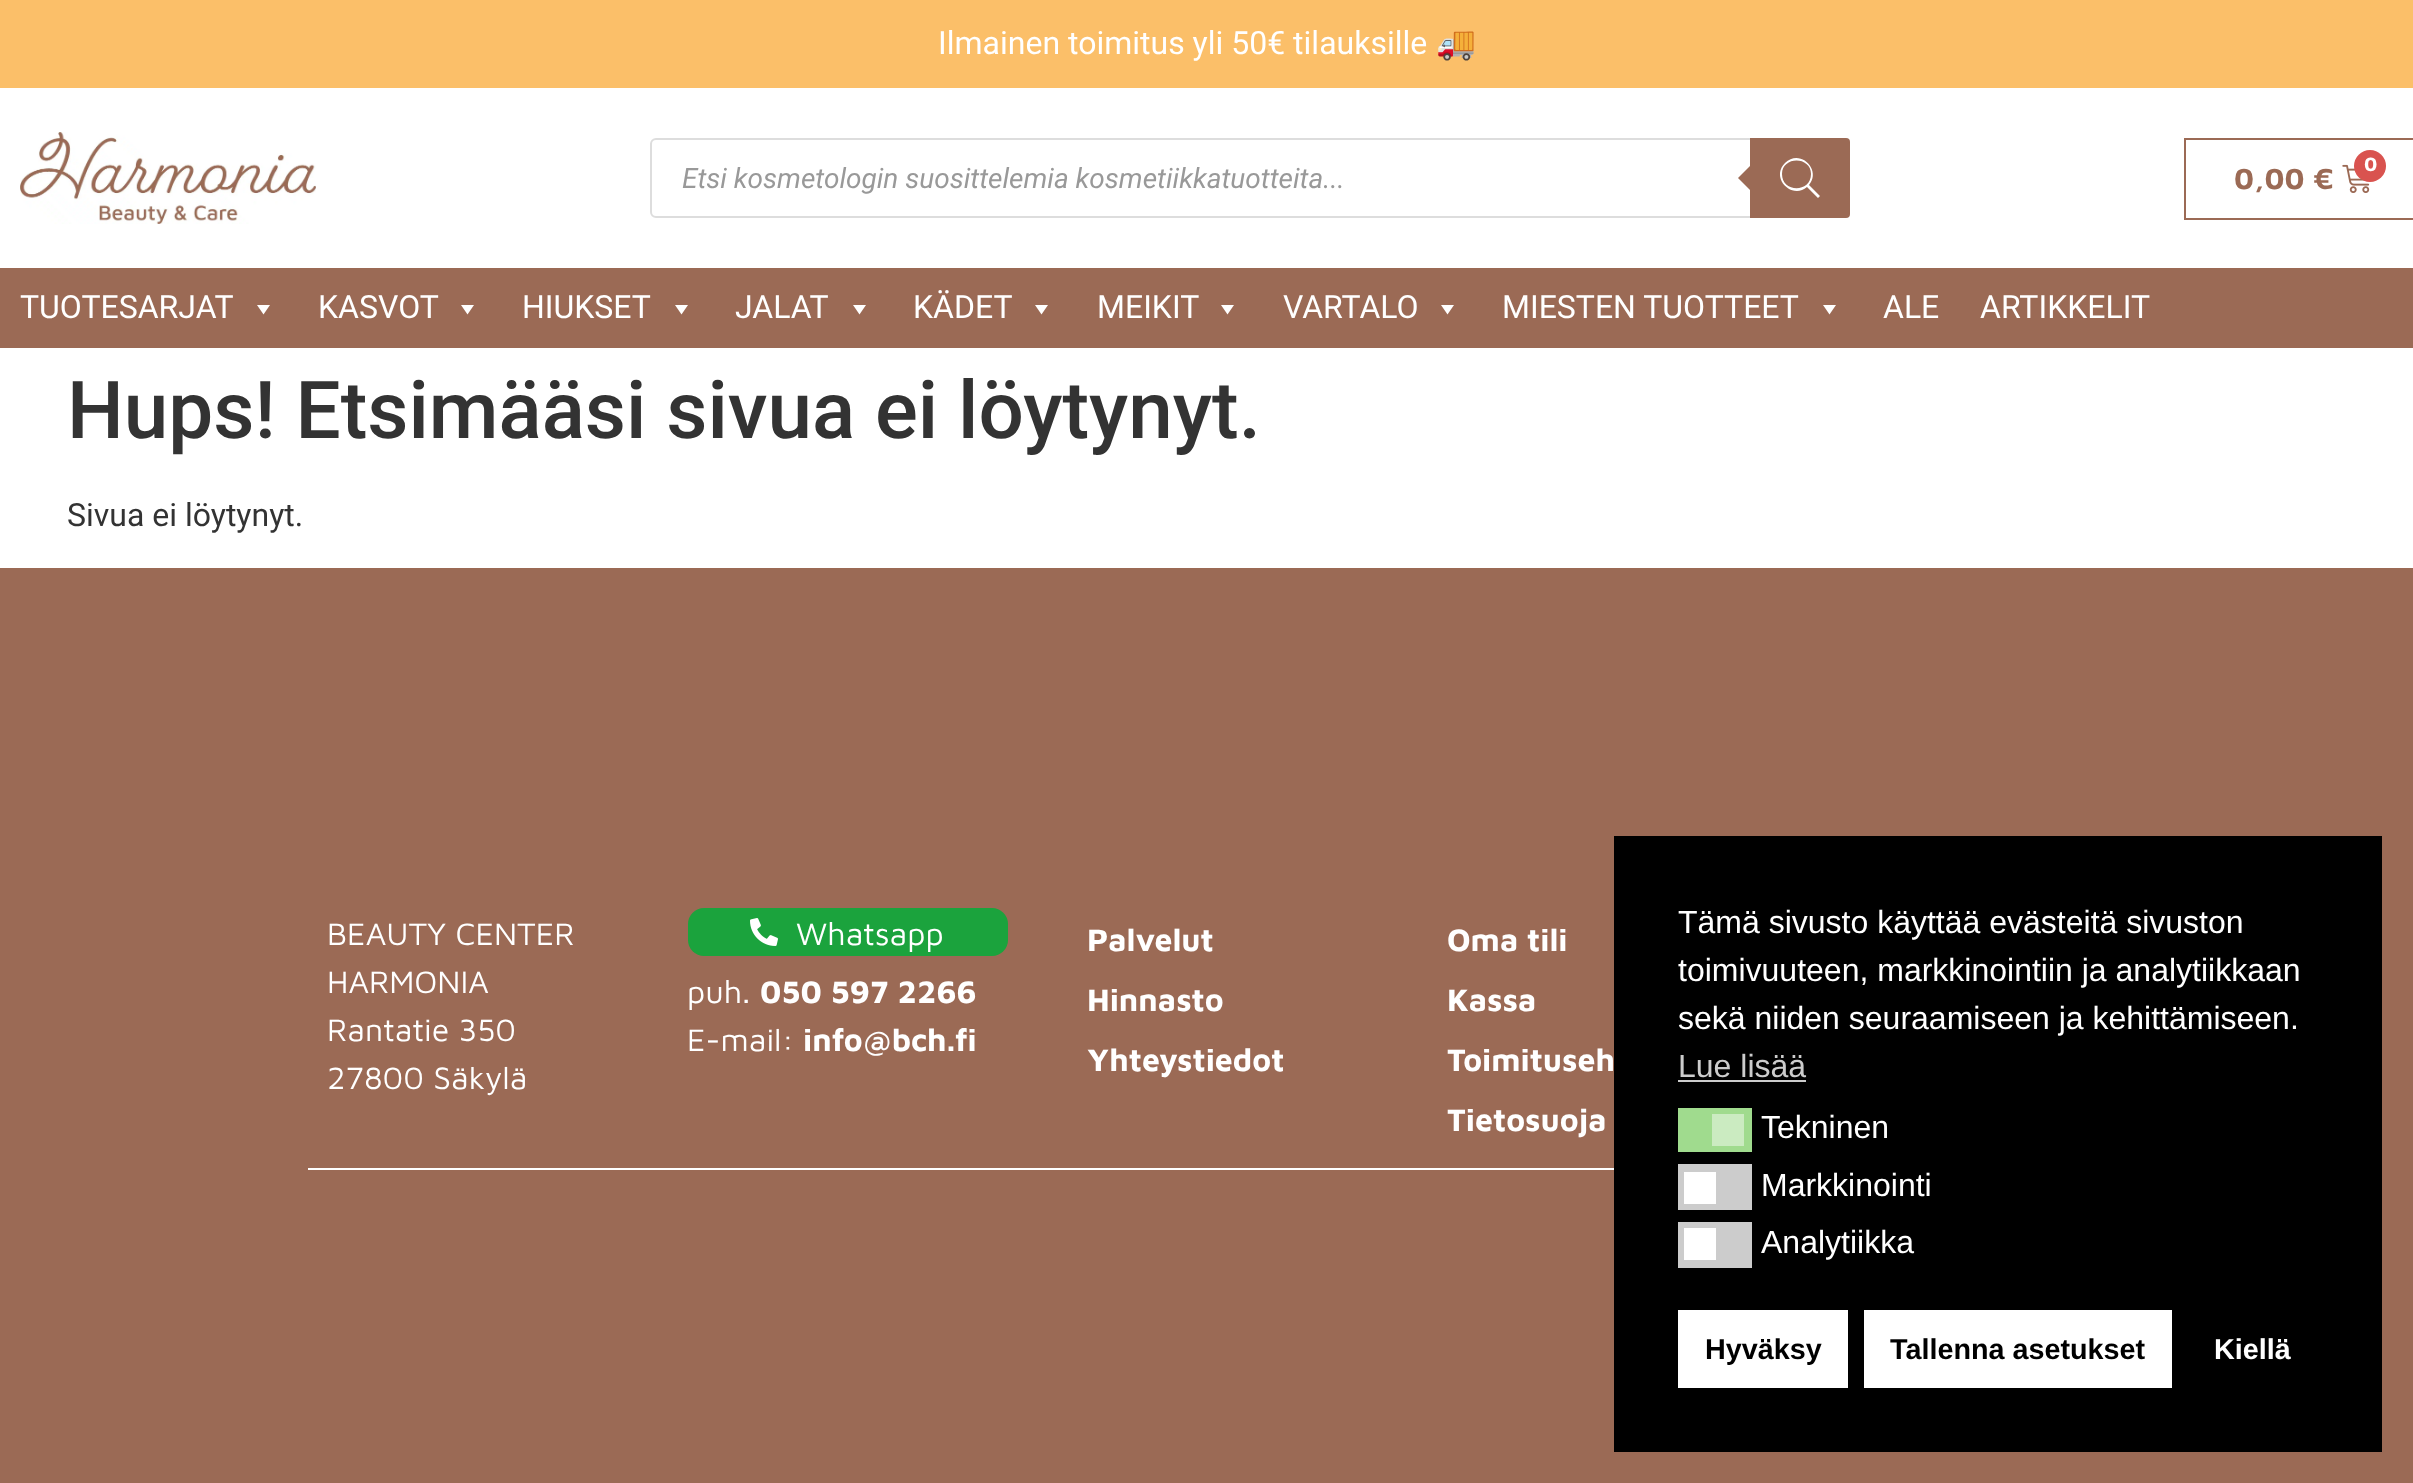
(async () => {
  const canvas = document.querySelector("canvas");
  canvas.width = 2413;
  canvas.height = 1483;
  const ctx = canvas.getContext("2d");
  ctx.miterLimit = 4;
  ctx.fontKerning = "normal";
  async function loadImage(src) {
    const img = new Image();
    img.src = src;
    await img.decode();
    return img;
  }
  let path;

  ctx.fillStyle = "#ffffff";
  ctx.fillRect(0, 0, 2413, 1483);
  ctx.fillStyle = "#fbbf69";
  ctx.fillRect(0, 0, 2413, 88);
  ctx.drawImage(await loadImage("img/1.png"), 20, 132, 296, 92);
  ctx.beginPath();
  ctx.roundRect(651, 139, 1198, 78, 5);
  ctx.strokeStyle = "#dddddd";
  ctx.lineWidth = 2;
  ctx.stroke();
  ctx.fillStyle = "#9b6a55";
  ctx.beginPath();
  ctx.roundRect(1750, 138, 100, 80, [0, 4, 4, 0]);
  ctx.fill();
  path = new Path2D("M1754 162V194L1738 178Z");
  ctx.fill(path);
  ctx.fillStyle = "#ffffff";
  path = new Path2D("M1820 196L1809 185C1822 170 1800 148 1785 163C1770 178 1792 200 1807 187L1818 198ZM1782 174C1782 156 1811 156 1811 174C1811 193 1782 193 1782 174Z");
  ctx.fill(path);
  ctx.strokeStyle = "#9b6a55";
  ctx.strokeRect(2185, 139, 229, 80);
  ctx.drawImage(await loadImage("img/2.png"), 2342, 164, 28, 29);
  ctx.fillStyle = "#d9534f";
  ctx.beginPath();
  ctx.arc(2370, 166, 16, 0, Math.PI * 2);
  ctx.fill();
  ctx.fillStyle = "#9b6a55";
  ctx.fillRect(0, 268, 2413, 80);
  ctx.fillStyle = "#ffffff";
  path = new Path2D("M270 305L263.5 314.5L257 305Z");
  ctx.fill(path);
  path = new Path2D("M474 305L467.5 314.5L461 305Z");
  ctx.fill(path);
  path = new Path2D("M688 305L681.5 314.5L675 305Z");
  ctx.fill(path);
  path = new Path2D("M866 305L859.5 314.5L853 305Z");
  ctx.fill(path);
  path = new Path2D("M1048 305L1041.5 314.5L1035 305Z");
  ctx.fill(path);
  path = new Path2D("M1234 305L1227.5 314.5L1221 305Z");
  ctx.fill(path);
  path = new Path2D("M1454 305L1447.5 314.5L1441 305Z");
  ctx.fill(path);
  path = new Path2D("M1836 305L1829.5 314.5L1823 305Z");
  ctx.fill(path);
  ctx.fillStyle = "#9b6a55";
  ctx.fillRect(0, 568, 2413, 915);
  ctx.fillStyle = "#ffffff";
  ctx.fillRect(308, 1168, 1306, 2);
  ctx.fillStyle = "#1ba33d";
  ctx.beginPath();
  ctx.roundRect(688, 908, 320, 48, 16);
  ctx.fill();
  ctx.drawImage(await loadImage("img/3.png"), 750, 918, 28, 28);
  for (const [x, y, w, h, color] of [
    [1614, 836, 768, 616, "#000000"],
    [1678, 1080, 128, 2, "#cccccc"],
    [1678, 1108, 74, 44, "#a0db8e"],
    [1712, 1114, 32, 32, "#cbebc1"],
    [1678, 1164, 74, 46, "#cccccc"],
    [1684, 1172, 32, 32, "#ffffff"],
    [1678, 1222, 74, 46, "#cccccc"],
    [1684, 1228, 32, 32, "#ffffff"],
    [1678, 1310, 170, 78, "#ffffff"],
    [1864, 1310, 308, 78, "#ffffff"],
  ]) {
    ctx.fillStyle = color;
    ctx.fillRect(x, y, w, h);
  }
  ctx.font = "32px Roboto";
  ctx.fillText("Ilmainen toimitus yli 50€ tilauksille", 938, 54);
  ctx.font = "32px Noto Color Emoji";
  ctx.fillText("🚚", 1436, 54);
  ctx.font = "italic 28px Roboto";
  ctx.fillStyle = "#999999";
  ctx.fillText("Etsi kosmetologin suosittelemia kosmetiikkatuotteita...", 682, 188);
  ctx.font = "bold 20px Maven Pro";
  ctx.fillStyle = "#ffffff";
  ctx.fillText("0", 2364, 171);
  ctx.font = "bold 30px Maven Pro";
  ctx.fillStyle = "#9b6a55";
  ctx.fillText("0,00 €", 2234, 189);
  ctx.font = "32px Roboto";
  ctx.fillStyle = "#ffffff";
  for (const [text, x, y] of [
    ["TUOTESARJAT", 20, 318],
    ["KASVOT", 318, 318],
    ["HIUKSET", 522, 318],
    ["JALAT", 735, 318],
    ["KÄDET", 913, 318],
    ["MEIKIT", 1097, 318],
    ["VARTALO", 1283, 318],
    ["MIESTEN TUOTTEET", 1502, 318],
    ["ALE", 1883, 318],
    ["ARTIKKELIT", 1980, 318],
  ]) {
    ctx.fillText(text, x, y);
  }
  ctx.font = "500 80px Roboto";
  ctx.fillStyle = "#333333";
  ctx.fillText("Hups! Etsimääsi sivua ei löytynyt.", 67, 438);
  ctx.font = "32px Roboto";
  ctx.fillText("Sivua ei löytynyt.", 67, 526);
  ctx.font = "32px Maven Pro";
  ctx.fillStyle = "#ffffff";
  for (const [text, x, y] of [
    ["BEAUTY CENTER", 327, 945],
    ["HARMONIA", 327, 993],
    ["Rantatie 350", 327, 1041],
    ["27800 Säkylä", 327, 1089],
    ["Whatsapp", 796, 945],
    ["puh.", 687, 1003],
  ]) {
    ctx.fillText(text, x, y);
  }
  ctx.font = "bold 32px Maven Pro";
  ctx.fillText("050 597 2266", 760, 1003);
  ctx.font = "32px Maven Pro";
  ctx.fillText("E-mail:", 687, 1051);
  ctx.font = "bold 32px Maven Pro";
  for (const [text, x, y] of [
    ["info@bch.fi", 803, 1051],
    ["Palvelut", 1087, 951],
    ["Hinnasto", 1087, 1011],
    ["Yhteystiedot", 1087, 1071],
    ["Oma tili", 1447, 951],
    ["Kassa", 1447, 1011],
    ["Toimituseh", 1447, 1071],
    ["Tietosuoja", 1447, 1131],
  ]) {
    ctx.fillText(text, x, y);
  }
  ctx.font = "32px Liberation Sans";
  for (const [text, x, y] of [
    ["Tämä sivusto käyttää evästeitä sivuston", 1678, 933],
    ["toimivuuteen, markkinointiin ja analytiikkaan", 1678, 981],
    ["sekä niiden seuraamiseen ja kehittämiseen.", 1678, 1029],
  ]) {
    ctx.fillText(text, x, y);
  }
  ctx.fillStyle = "#cccccc";
  ctx.fillText("Lue lisää", 1678, 1077);
  ctx.fillStyle = "#ffffff";
  for (const [text, x, y] of [
    ["Tekninen", 1761, 1138],
    ["Markkinointi", 1761, 1196],
    ["Analytiikka", 1761, 1253],
  ]) {
    ctx.fillText(text, x, y);
  }
  ctx.font = "bold 28.75px Liberation Sans";
  ctx.fillStyle = "#000000";
  ctx.fillText("Hyväksy", 1705, 1359);
  ctx.fillText("Tallenna asetukset", 1890, 1359);
  ctx.fillStyle = "#ffffff";
  ctx.fillText("Kiellä", 2214, 1359);
})();
